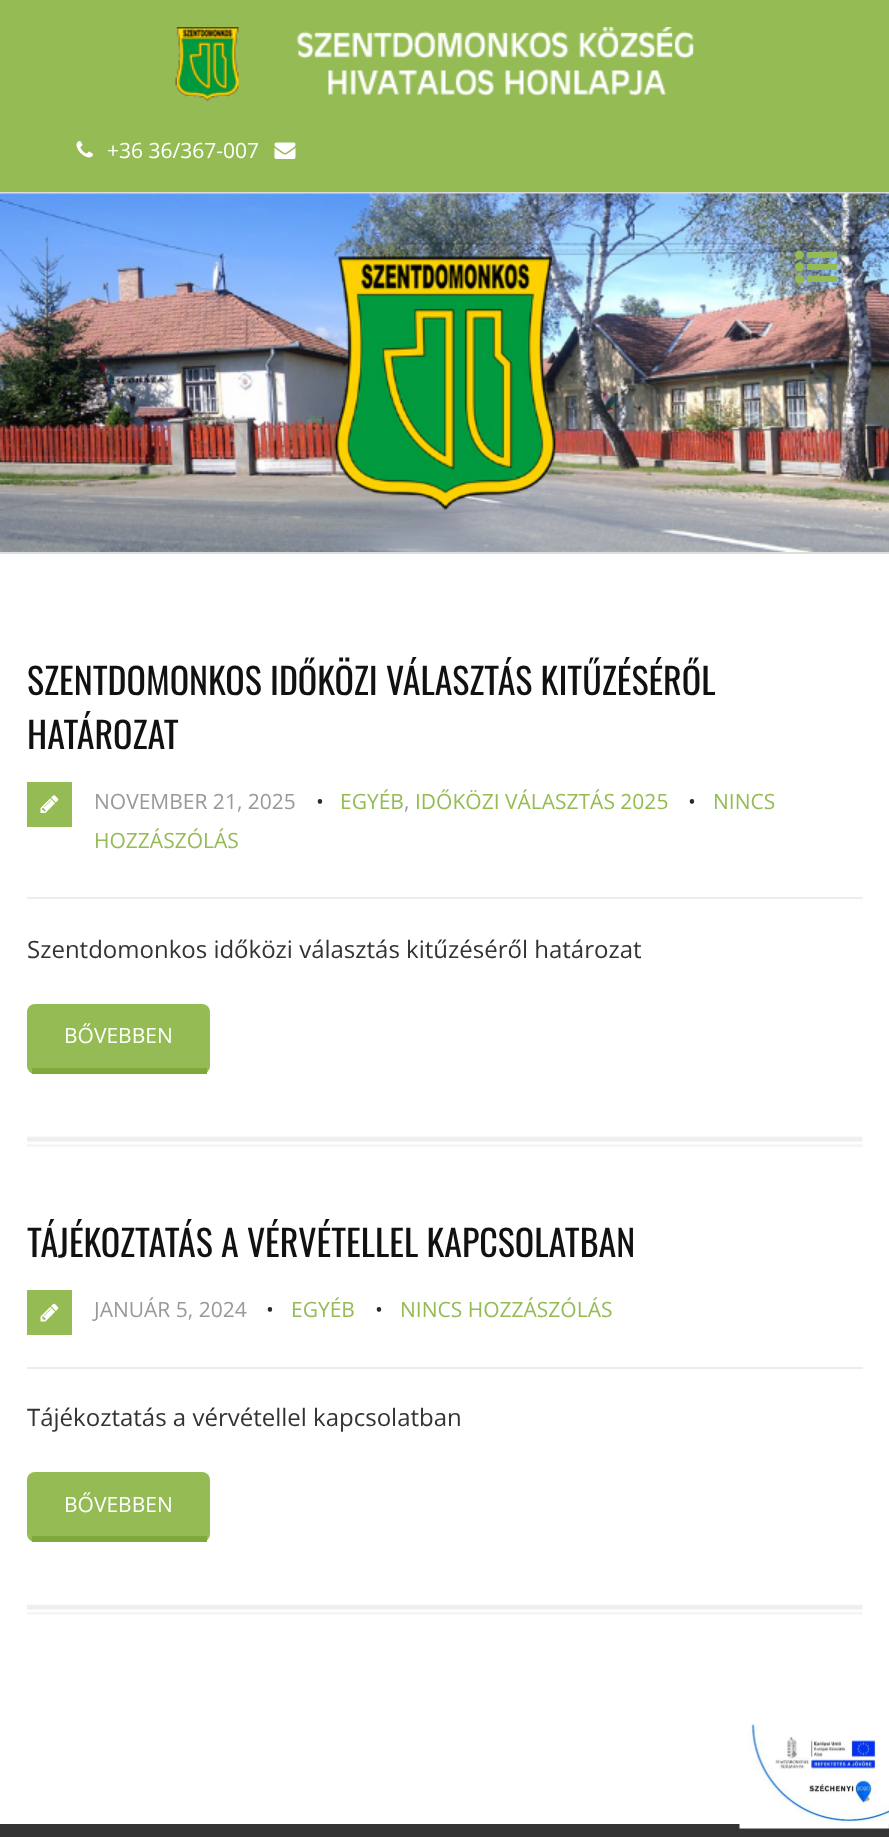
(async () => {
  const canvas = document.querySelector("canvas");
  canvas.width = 889;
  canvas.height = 1837;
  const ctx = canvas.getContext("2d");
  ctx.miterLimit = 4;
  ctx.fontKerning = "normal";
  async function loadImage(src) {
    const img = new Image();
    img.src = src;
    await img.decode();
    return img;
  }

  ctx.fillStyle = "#ffffff";
  ctx.fillRect(0, 0, 889, 1837);
  ctx.fillStyle = "#94bb54";
  ctx.fillRect(0, 0, 889, 192);
  ctx.drawImage(await loadImage("img/1.png"), 175, 27, 519, 74);
  ctx.drawImage(await loadImage("img/2.png"), 76, 141, 17, 17);
  ctx.drawImage(await loadImage("img/3.png"), 274, 142, 22, 17);
  ctx.fillStyle = "#dddddd";
  ctx.fillRect(0, 192, 889, 2);
  ctx.fillRect(0, 552, 889, 2);
  ctx.drawImage(await loadImage("img/4.png"), 0, 193, 889, 359);
  ctx.drawImage(await loadImage("img/5.png"), 795, 250, 42, 34);
  ctx.drawImage(await loadImage("img/6.png"), 27, 1136, 836, 11);
  ctx.fillStyle = "#ededed";
  ctx.fillRect(27, 897, 836, 2);
  ctx.fillStyle = "#94bb54";
  ctx.fillRect(27, 782, 45, 45);
  ctx.drawImage(await loadImage("img/7.png"), 40, 795, 19, 18);
  ctx.beginPath();
  ctx.roundRect(27, 1004, 183, 70, 8);
  ctx.fill();
  ctx.fillStyle = "#80a93d";
  ctx.fillRect(32, 1068, 175, 6);
  ctx.drawImage(await loadImage("img/8.png"), 27, 1604, 836, 11);
  ctx.fillStyle = "#ededed";
  ctx.fillRect(27, 1367, 836, 2);
  ctx.fillStyle = "#94bb54";
  ctx.fillRect(27, 1290, 45, 45);
  ctx.drawImage(await loadImage("img/9.png"), 40, 1303, 19, 19);
  ctx.beginPath();
  ctx.roundRect(27, 1472, 183, 70, 8);
  ctx.fill();
  ctx.fillStyle = "#80a93d";
  ctx.fillRect(32, 1536, 175, 6);
  ctx.fillStyle = "#333333";
  ctx.fillRect(0, 1824, 889, 13);
  ctx.drawImage(await loadImage("img/10.png"), 739, 1724, 150, 105);
  ctx.font = "21px Open Sans";
  ctx.fillStyle = "#ffffff";
  ctx.fillText("+36 36/367-007", 107, 158);
  ctx.font = "36px Oswald";
  ctx.fillStyle = "#111111";
  ctx.fillText("SZENTDOMONKOS IDŐKÖZI VÁLASZTÁS KITŰZÉSÉRŐL", 27, 695);
  ctx.fillText("HATÁROZAT", 27, 749);
  ctx.font = "21px Open Sans";
  ctx.fillStyle = "#999999";
  ctx.fillText("NOVEMBER 21, 2025", 94, 809);
  ctx.fillStyle = "#2a2b2c";
  ctx.fillText("•", 316, 809);
  ctx.fillStyle = "#94bb54";
  ctx.fillText("EGYÉB", 340, 809);
  ctx.fillText("IDŐKÖZI VÁLASZTÁS 2025", 415, 809);
  ctx.fillStyle = "#2a2b2c";
  ctx.fillText("•", 688, 809);
  ctx.fillStyle = "#999999";
  ctx.fillText(",", 404, 809);
  ctx.fillStyle = "#94bb54";
  ctx.fillText("NINCS", 713, 809);
  ctx.fillText("HOZZÁSZÓLÁS", 94, 848);
  ctx.font = "24px Open Sans";
  ctx.fillStyle = "#333333";
  ctx.fillText("Szentdomonkos időközi választás kitűzéséről határozat", 27, 958);
  ctx.font = "21px Open Sans";
  ctx.fillStyle = "#ffffff";
  ctx.fillText("BŐVEBBEN", 64, 1043);
  ctx.font = "36px Oswald";
  ctx.fillStyle = "#111111";
  ctx.fillText("TÁJÉKOZTATÁS A VÉRVÉTELLEL KAPCSOLATBAN", 27, 1257);
  ctx.font = "21px Open Sans";
  ctx.fillStyle = "#999999";
  ctx.fillText("JANUÁR 5, 2024", 94, 1317);
  ctx.fillStyle = "#2a2b2c";
  ctx.fillText("•", 266, 1317);
  ctx.fillStyle = "#94bb54";
  ctx.fillText("EGYÉB", 291, 1317);
  ctx.fillStyle = "#2a2b2c";
  ctx.fillText("•", 375, 1317);
  ctx.fillStyle = "#94bb54";
  ctx.fillText("NINCS HOZZÁSZÓLÁS", 400, 1317);
  ctx.font = "24px Open Sans";
  ctx.fillStyle = "#333333";
  ctx.fillText("Tájékoztatás a vérvétellel kapcsolatban", 27, 1426);
  ctx.font = "21px Open Sans";
  ctx.fillStyle = "#ffffff";
  ctx.fillText("BŐVEBBEN", 64, 1512);
})();
